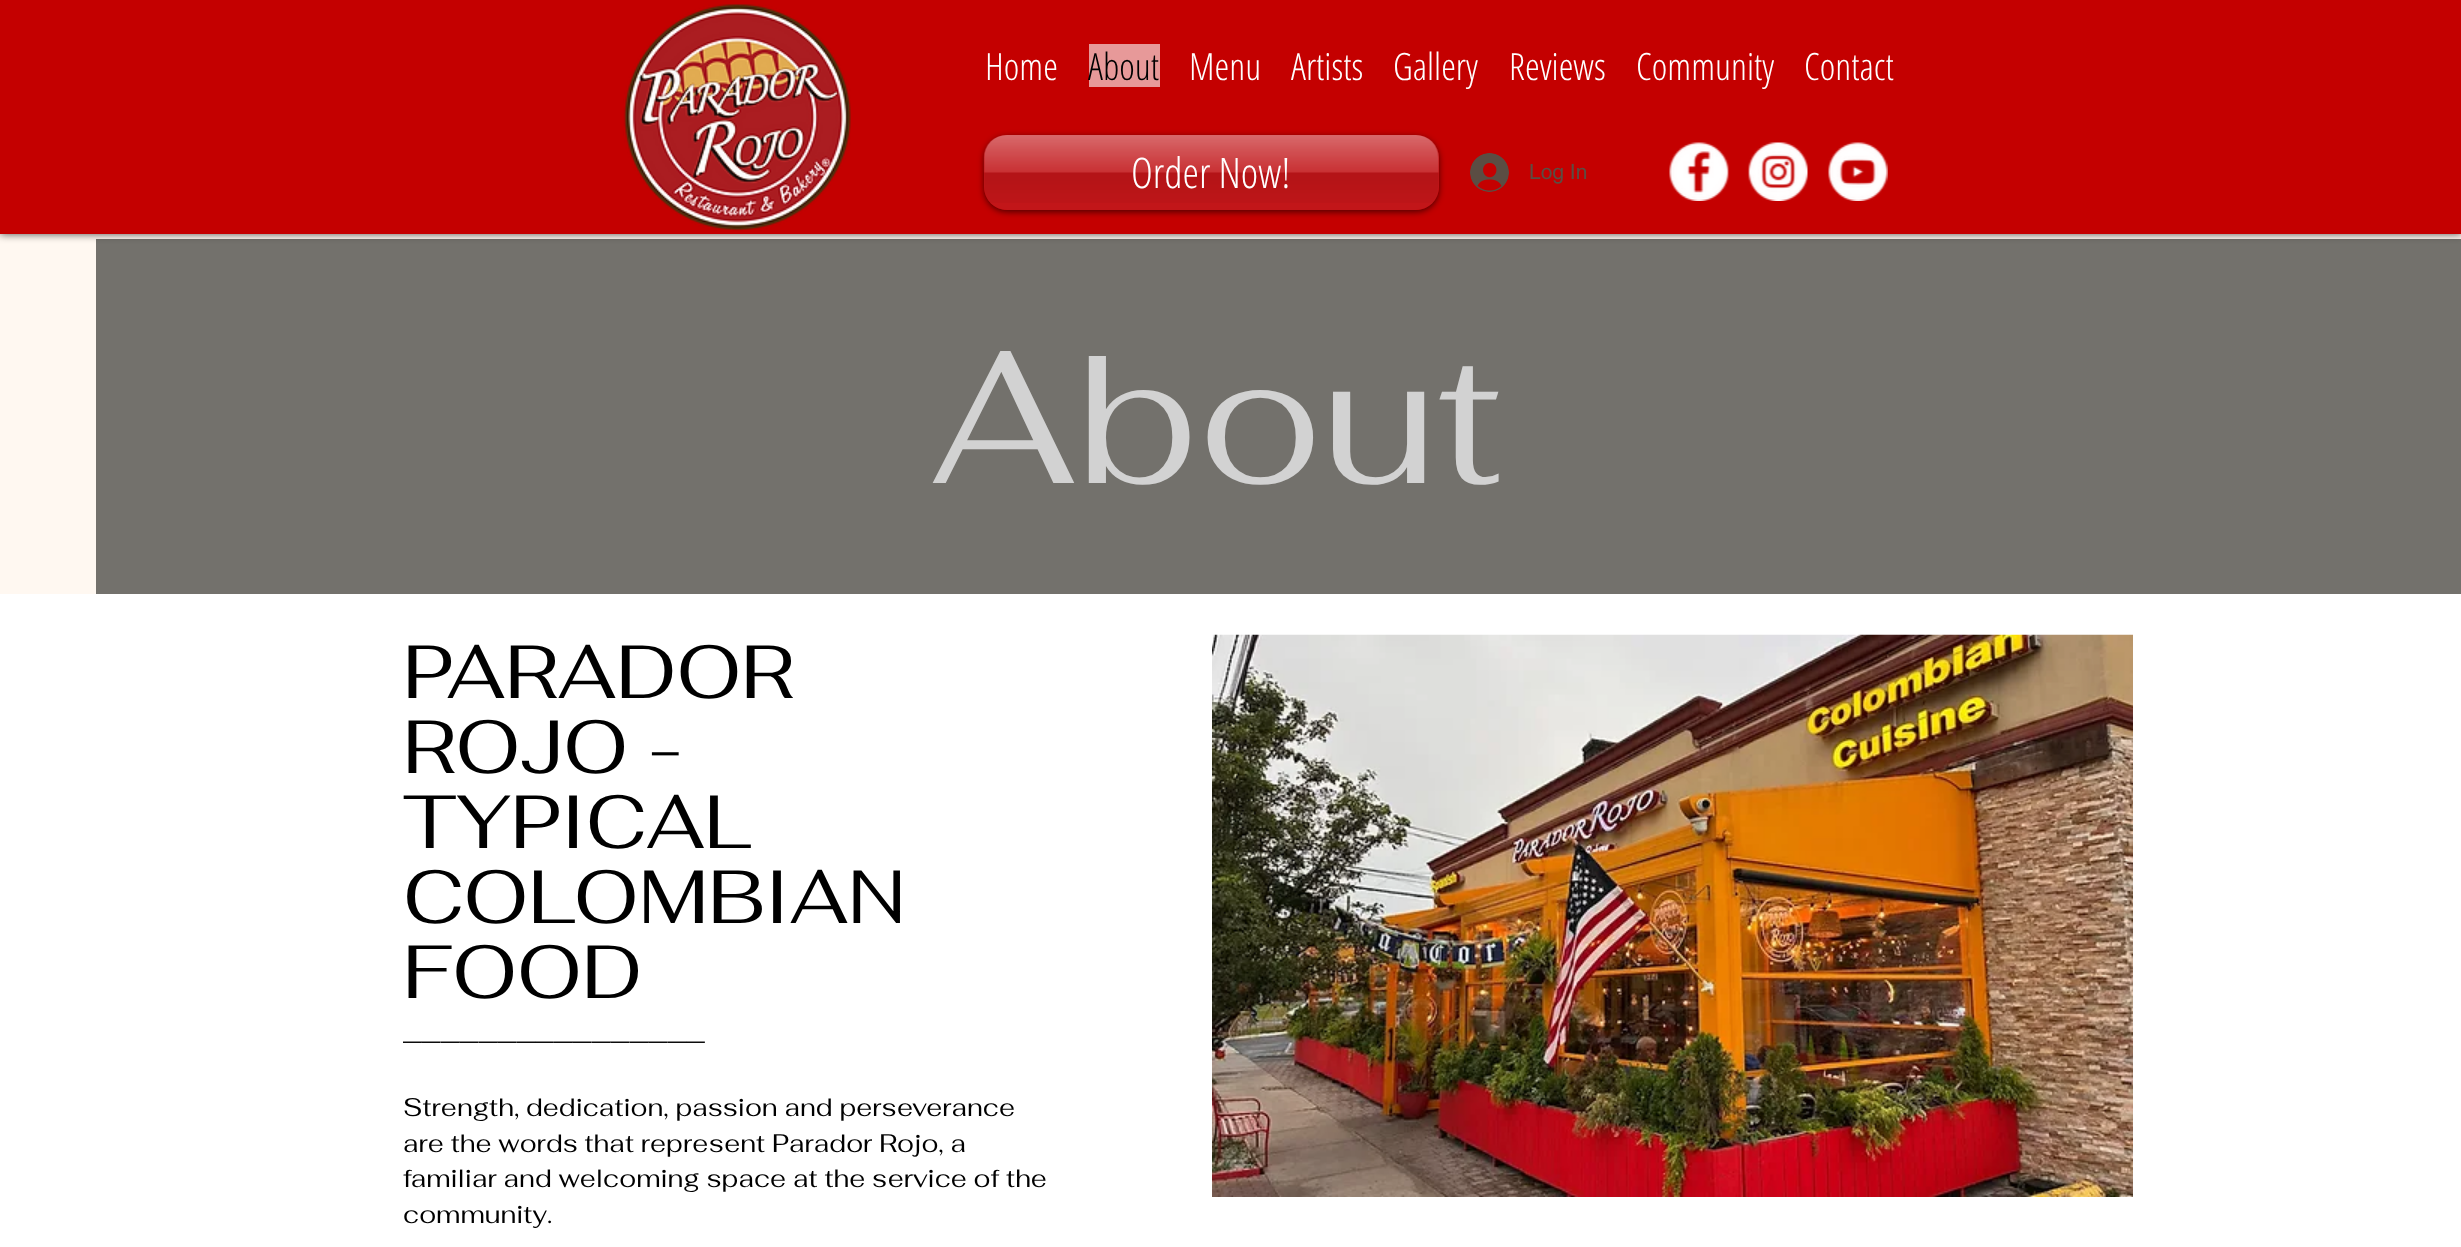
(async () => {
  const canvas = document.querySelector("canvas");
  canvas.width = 2461;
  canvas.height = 1247;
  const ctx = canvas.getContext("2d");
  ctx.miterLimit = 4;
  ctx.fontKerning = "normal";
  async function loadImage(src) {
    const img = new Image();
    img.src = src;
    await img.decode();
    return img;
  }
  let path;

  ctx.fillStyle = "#ffffff";
  ctx.fillRect(0, 0, 2461, 1247);
  ctx.fillStyle = "#fff8f1";
  ctx.fillRect(0, 234, 2461, 360);
  ctx.fillStyle = "#73716c";
  ctx.fillRect(96, 239, 2365, 355);
  ctx.fillStyle = "rgba(0, 0, 0, 0.7)";
  ctx.filter = "blur(4px)";
  ctx.beginPath();
  ctx.rect(0, 0, 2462, 234);
  ctx.fill();
  ctx.filter = "none";
  ctx.fillStyle = "#c40000";
  ctx.fillRect(0, 0, 2461, 234);
  ctx.drawImage(await loadImage("img/1.png"), 623, 4, 228, 227);
  ctx.fillStyle = "#e79999";
  ctx.fillRect(1089, 44, 71, 43);
  ctx.save();
  path = new Path2D("M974 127H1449V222H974ZM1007 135H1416C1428.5 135 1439 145.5 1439 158V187C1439 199.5 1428.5 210 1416 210H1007C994.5 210 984 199.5 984 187V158C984 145.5 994.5 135 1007 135Z");
  ctx.clip(path, "evenodd");
  ctx.fillStyle = "rgba(0, 0, 0, 0.6)";
  ctx.filter = "blur(3px)";
  ctx.beginPath();
  ctx.roundRect(984, 137, 455, 75, 23);
  ctx.fill();
  ctx.filter = "none";
  ctx.restore();
  ctx.fillStyle = "rgba(193, 29, 34, 0.75)";
  ctx.beginPath();
  ctx.roundRect(984, 135, 455, 75, 23);
  ctx.fill();
  ctx.drawImage(await loadImage("img/2.png"), 983, 135, 456, 68);
  ctx.drawImage(await loadImage("img/3.png"), 1470, 153, 39, 39);
  ctx.drawImage(await loadImage("img/4.png"), 1669, 142, 60, 59);
  ctx.drawImage(await loadImage("img/5.png"), 1748, 142, 60, 59);
  ctx.drawImage(await loadImage("img/6.png"), 1828, 142, 60, 59);
  ctx.drawImage(await loadImage("img/7.png"), 1212, 634, 921, 563);
  ctx.font = "300 37.5px Open Sans Condensed";
  ctx.fillStyle = "#ffffff";
  ctx.fillText("Home", 985, 80);
  ctx.fillStyle = "#000000";
  ctx.fillText("About", 1088, 80);
  ctx.fillStyle = "#ffffff";
  for (const [text, x, y] of [
    ["Menu", 1189, 80],
    ["Artists", 1291, 80],
    ["Gallery", 1393, 80],
    ["Reviews", 1509, 80],
    ["Community", 1636, 80],
    ["Contact", 1804, 80],
  ]) {
    ctx.fillText(text, x, y);
  }
  ctx.font = "300 42px Open Sans Condensed";
  ctx.fillText("Order Now!", 1131, 188);
  ctx.font = "21px helvetica";
  ctx.fillStyle = "#5b4d43";
  ctx.fillText("Log In", 1529, 179);
  ctx.font = "186px Fahkwang";
  ctx.fillStyle = "#d2d2d2";
  ctx.fillText("About", 931, 483);
  ctx.font = "75px Fahkwang";
  ctx.fillStyle = "#000000";
  for (const [text, x, y] of [
    ["PARADOR", 403, 698],
    ["ROJO -", 403, 773],
    ["TYPICAL", 403, 848],
    ["COLOMBIAN", 403, 923],
    ["FOOD", 403, 998],
  ]) {
    ctx.fillText(text, x, y);
  }
  ctx.font = "34.5px Fahkwang";
  ctx.fillText("________________", 403, 1038);
  ctx.font = "25.5px Fahkwang";
  for (const [text, x, y] of [
    ["Strength, dedication, passion and perseverance", 403, 1116],
    ["are the words that represent Parador Rojo, a", 403, 1152],
    ["familiar and welcoming space at the service of the", 403, 1187],
    ["community.", 403, 1223],
  ]) {
    ctx.fillText(text, x, y);
  }
})();
